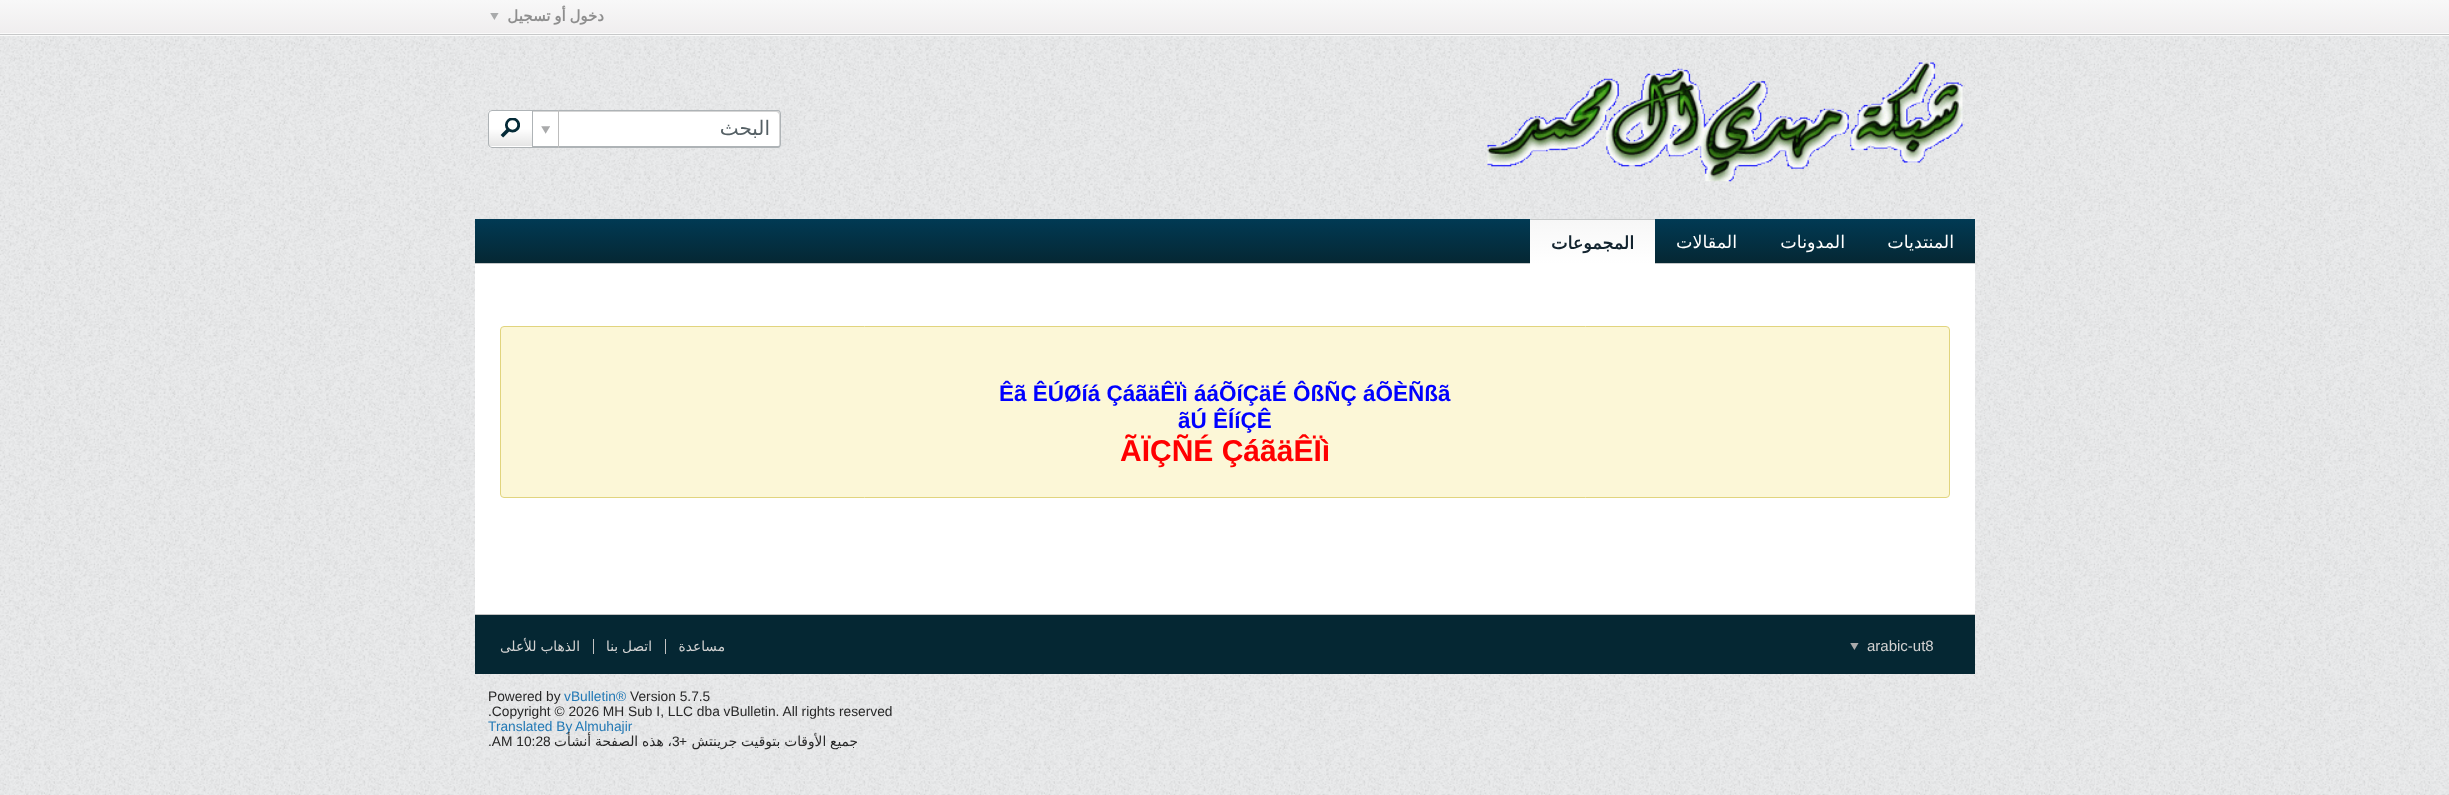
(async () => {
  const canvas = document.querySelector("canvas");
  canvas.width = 2449;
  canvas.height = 795;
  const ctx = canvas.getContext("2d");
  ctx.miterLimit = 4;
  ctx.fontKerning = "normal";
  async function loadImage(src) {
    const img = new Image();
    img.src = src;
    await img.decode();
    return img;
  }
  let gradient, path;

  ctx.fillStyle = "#eaebec";
  ctx.fillRect(0, 0, 2449, 795);
  ctx.drawImage(await loadImage("img/1.png"), 0, 36, 2449, 759);
  gradient = ctx.createLinearGradient(1225, 0, 1225, 35);
  gradient.addColorStop(0, "#f8f8f8");
  gradient.addColorStop(1, "#efedee");
  ctx.fillStyle = gradient;
  ctx.fillRect(0, 0, 2449, 33);
  ctx.drawImage(await loadImage("img/2.png"), 490, 13, 9, 7);
  for (const [x, y, w, h, color] of [
    [0, 33, 2449, 3, "#fafafa"],
    [0, 34, 2449, 1, "#c7c8c9"],
    [475, 36, 1500, 183, "#eaebec"],
  ]) {
    ctx.fillStyle = color;
    ctx.fillRect(x, y, w, h);
  }
  ctx.drawImage(await loadImage("img/3.png"), 475, 36, 1500, 183);
  ctx.fillStyle = "#ffffff";
  ctx.beginPath();
  ctx.roundRect(488, 110, 45, 38, [4, 0, 0, 4]);
  ctx.fill();
  gradient = ctx.createLinearGradient(510, 146, 510, 111);
  gradient.addColorStop(0, "rgba(0, 0, 0, 0.1)");
  gradient.addColorStop(0.5, "rgba(0, 0, 0, 0)");
  gradient.addColorStop(0.5, "rgba(255, 255, 255, 0)");
  gradient.addColorStop(1, "rgba(255, 255, 255, 0.7)");
  ctx.fillStyle = gradient;
  ctx.fillRect(488, 111, 44, 35);
  ctx.save();
  ctx.beginPath();
  ctx.roundRect(488, 110, 45, 38, [4, 0, 0, 4]);
  ctx.clip();
  gradient = ctx.createLinearGradient(510, 181, 510, 146);
  gradient.addColorStop(0, "rgba(0, 0, 0, 0.1)");
  gradient.addColorStop(0.5, "rgba(0, 0, 0, 0)");
  gradient.addColorStop(0.5, "rgba(255, 255, 255, 0)");
  gradient.addColorStop(1, "rgba(255, 255, 255, 0.7)");
  ctx.fillStyle = gradient;
  ctx.fillRect(488, 146, 45, 2);
  ctx.restore();
  ctx.beginPath();
  ctx.roundRect(488.5, 110.5, 44, 37, [3.5, 0, 0, 3.5]);
  ctx.strokeStyle = "#aeb3b6";
  ctx.stroke();
  ctx.drawImage(await loadImage("img/4.png"), 500, 118, 20, 20);
  ctx.fillStyle = "#ffffff";
  ctx.beginPath();
  ctx.roundRect(533, 110, 248, 38, [0, 4, 4, 0]);
  ctx.fill();
  ctx.fillStyle = "#d5d5d5";
  path = new Path2D("M533 111V112H776C778 112 779 114 779 115V146C780 145 780 144 780 144V114C780 112 779 111 778 111Z");
  ctx.fill(path);
  ctx.fillStyle = "#aeb3b6";
  path = new Path2D("M532 110H778C780 110 781 112 781 114V144C781 146 780 148 778 148H532ZM532 111H778C779 111 780 112 780 114V144C780 145 779 146 778 146H532Z");
  ctx.fill(path, "evenodd");
  ctx.drawImage(await loadImage("img/5.png"), 541, 126, 9, 8);
  ctx.fillStyle = "#bdbdbd";
  ctx.fillRect(558, 110, 1, 38);
  ctx.drawImage(await loadImage("img/6.png"), 1487, 62, 476, 120);
  gradient = ctx.createLinearGradient(1225, 219, 1225, 263);
  gradient.addColorStop(0, "#013a54");
  gradient.addColorStop(1, "#052733");
  ctx.fillStyle = gradient;
  ctx.fillRect(475, 219, 1500, 44);
  ctx.fillStyle = "#c4c7c8";
  ctx.fillRect(475, 263, 1500, 1);
  gradient = ctx.createLinearGradient(1593, 176, 1593, 220);
  gradient.addColorStop(0, "#f7f7f7");
  gradient.addColorStop(1, "#ffffff");
  ctx.fillStyle = gradient;
  ctx.beginPath();
  ctx.roundRect(1530, 219, 125, 1, [1, 1, 0, 0]);
  ctx.fill();
  gradient = ctx.createLinearGradient(1593, 220, 1593, 264);
  gradient.addColorStop(0, "#f7f7f7");
  gradient.addColorStop(1, "#ffffff");
  ctx.fillStyle = gradient;
  ctx.fillRect(1530, 220, 125, 44);
  ctx.fillStyle = "#c4c7c8";
  ctx.fillRect(1531, 219, 124, 1);
  ctx.fillStyle = "#ffffff";
  ctx.fillRect(475, 264, 1500, 350);
  ctx.fillStyle = "#fcf7d7";
  ctx.beginPath();
  ctx.roundRect(500.5, 326.5, 1449, 171, 3.5);
  ctx.fill();
  ctx.strokeStyle = "#e1d47e";
  ctx.stroke();
  for (const [x, y, w, h, color] of [
    [475, 615, 1500, 59, "#052733"],
    [475, 614, 1500, 1, "#c2c2c2"],
    [593, 639, 1, 15, "#c2c2c2"],
    [665, 639, 1, 15, "#c2c2c2"],
  ]) {
    ctx.fillStyle = color;
    ctx.fillRect(x, y, w, h);
  }
  ctx.drawImage(await loadImage("img/7.png"), 1850, 643, 9, 7);
  ctx.wordSpacing = "-1px";
  ctx.direction = "rtl";
  ctx.font = "bold 15px DejaVu Sans";
  ctx.fillStyle = "#8e8e8e";
  ctx.fillText("دخول أو تسجيل", 604, 21);
  ctx.wordSpacing = "0px";
  ctx.font = "20px DejaVu Sans";
  ctx.fillStyle = "#556065";
  ctx.fillText("البحث", 770, 135);
  ctx.font = "bold 17.5px DejaVu Sans";
  ctx.fillStyle = "#13242f";
  ctx.fillText("المجموعات", 1634, 249);
  ctx.font = "17.5px DejaVu Sans";
  ctx.fillStyle = "#ffffff";
  for (const [text, x, y] of [
    ["المقالات", 1737, 248],
    ["المدونات", 1845, 248],
    ["المنتديات", 1954, 248],
  ]) {
    ctx.fillText(text, x, y);
  }
  ctx.direction = "ltr";
  ctx.font = "bold 22.5px Liberation Sans";
  ctx.fillStyle = "#0000ff";
  ctx.fillText("Êã ÊÚØíá ÇáãäÊÏì ááÕíÇäÉ ÔßÑÇ áÕÈÑßã", 999, 401);
  ctx.fillText("ãÚ ÊÍíÇÊ", 1178, 428);
  ctx.font = "bold 30px Liberation Sans";
  ctx.fillStyle = "#ff0000";
  ctx.fillText("ÃÏÇÑÉ ÇáãäÊÏì", 1120, 461);
  ctx.wordSpacing = "-0.5px";
  ctx.direction = "rtl";
  ctx.font = "13.75px DejaVu Sans";
  ctx.fillStyle = "#d2d2d2";
  ctx.fillText("الذهاب للأعلى", 580, 651);
  ctx.fillText("اتصل بنا", 652, 651);
  ctx.wordSpacing = "0px";
  ctx.fillText("مساعدة", 725, 651);
  ctx.direction = "ltr";
  ctx.font = "15px Liberation Sans";
  ctx.fillText("arabic-ut8", 1867, 651);
  ctx.font = "13.75px Liberation Sans";
  ctx.fillStyle = "#272727";
  ctx.fillText("Powered by", 488, 701);
  ctx.fillStyle = "#2379b5";
  ctx.fillText("vBulletin®", 564, 701);
  ctx.fillStyle = "#272727";
  ctx.fillText("Version 5.7.5", 630, 701);
  ctx.fillText(".Copyright © 2026 MH Sub I, LLC dba vBulletin. All rights reserved", 488, 716);
  ctx.fillStyle = "#2379b5";
  ctx.fillText("Translated By", 488, 731);
  ctx.fillText("Almuhajir", 575, 731);
  ctx.fillStyle = "#272727";
  ctx.fillText(".AM 10:28", 488, 746);
  ctx.wordSpacing = "-0.5px";
  ctx.direction = "rtl";
  ctx.font = "13.75px DejaVu Sans";
  ctx.fillText("، هذه الصفحة أنشأت", 672, 746);
  ctx.wordSpacing = "0px";
  ctx.direction = "ltr";
  ctx.font = "13.75px Liberation Sans";
  ctx.fillText("3", 672, 746);
  ctx.direction = "rtl";
  ctx.fillText("+", 687, 746);
  ctx.wordSpacing = "-0.5px";
  ctx.font = "13.75px DejaVu Sans";
  ctx.fillText("جميع الأوقات بتوقيت جرينتش", 858, 746);
})();
